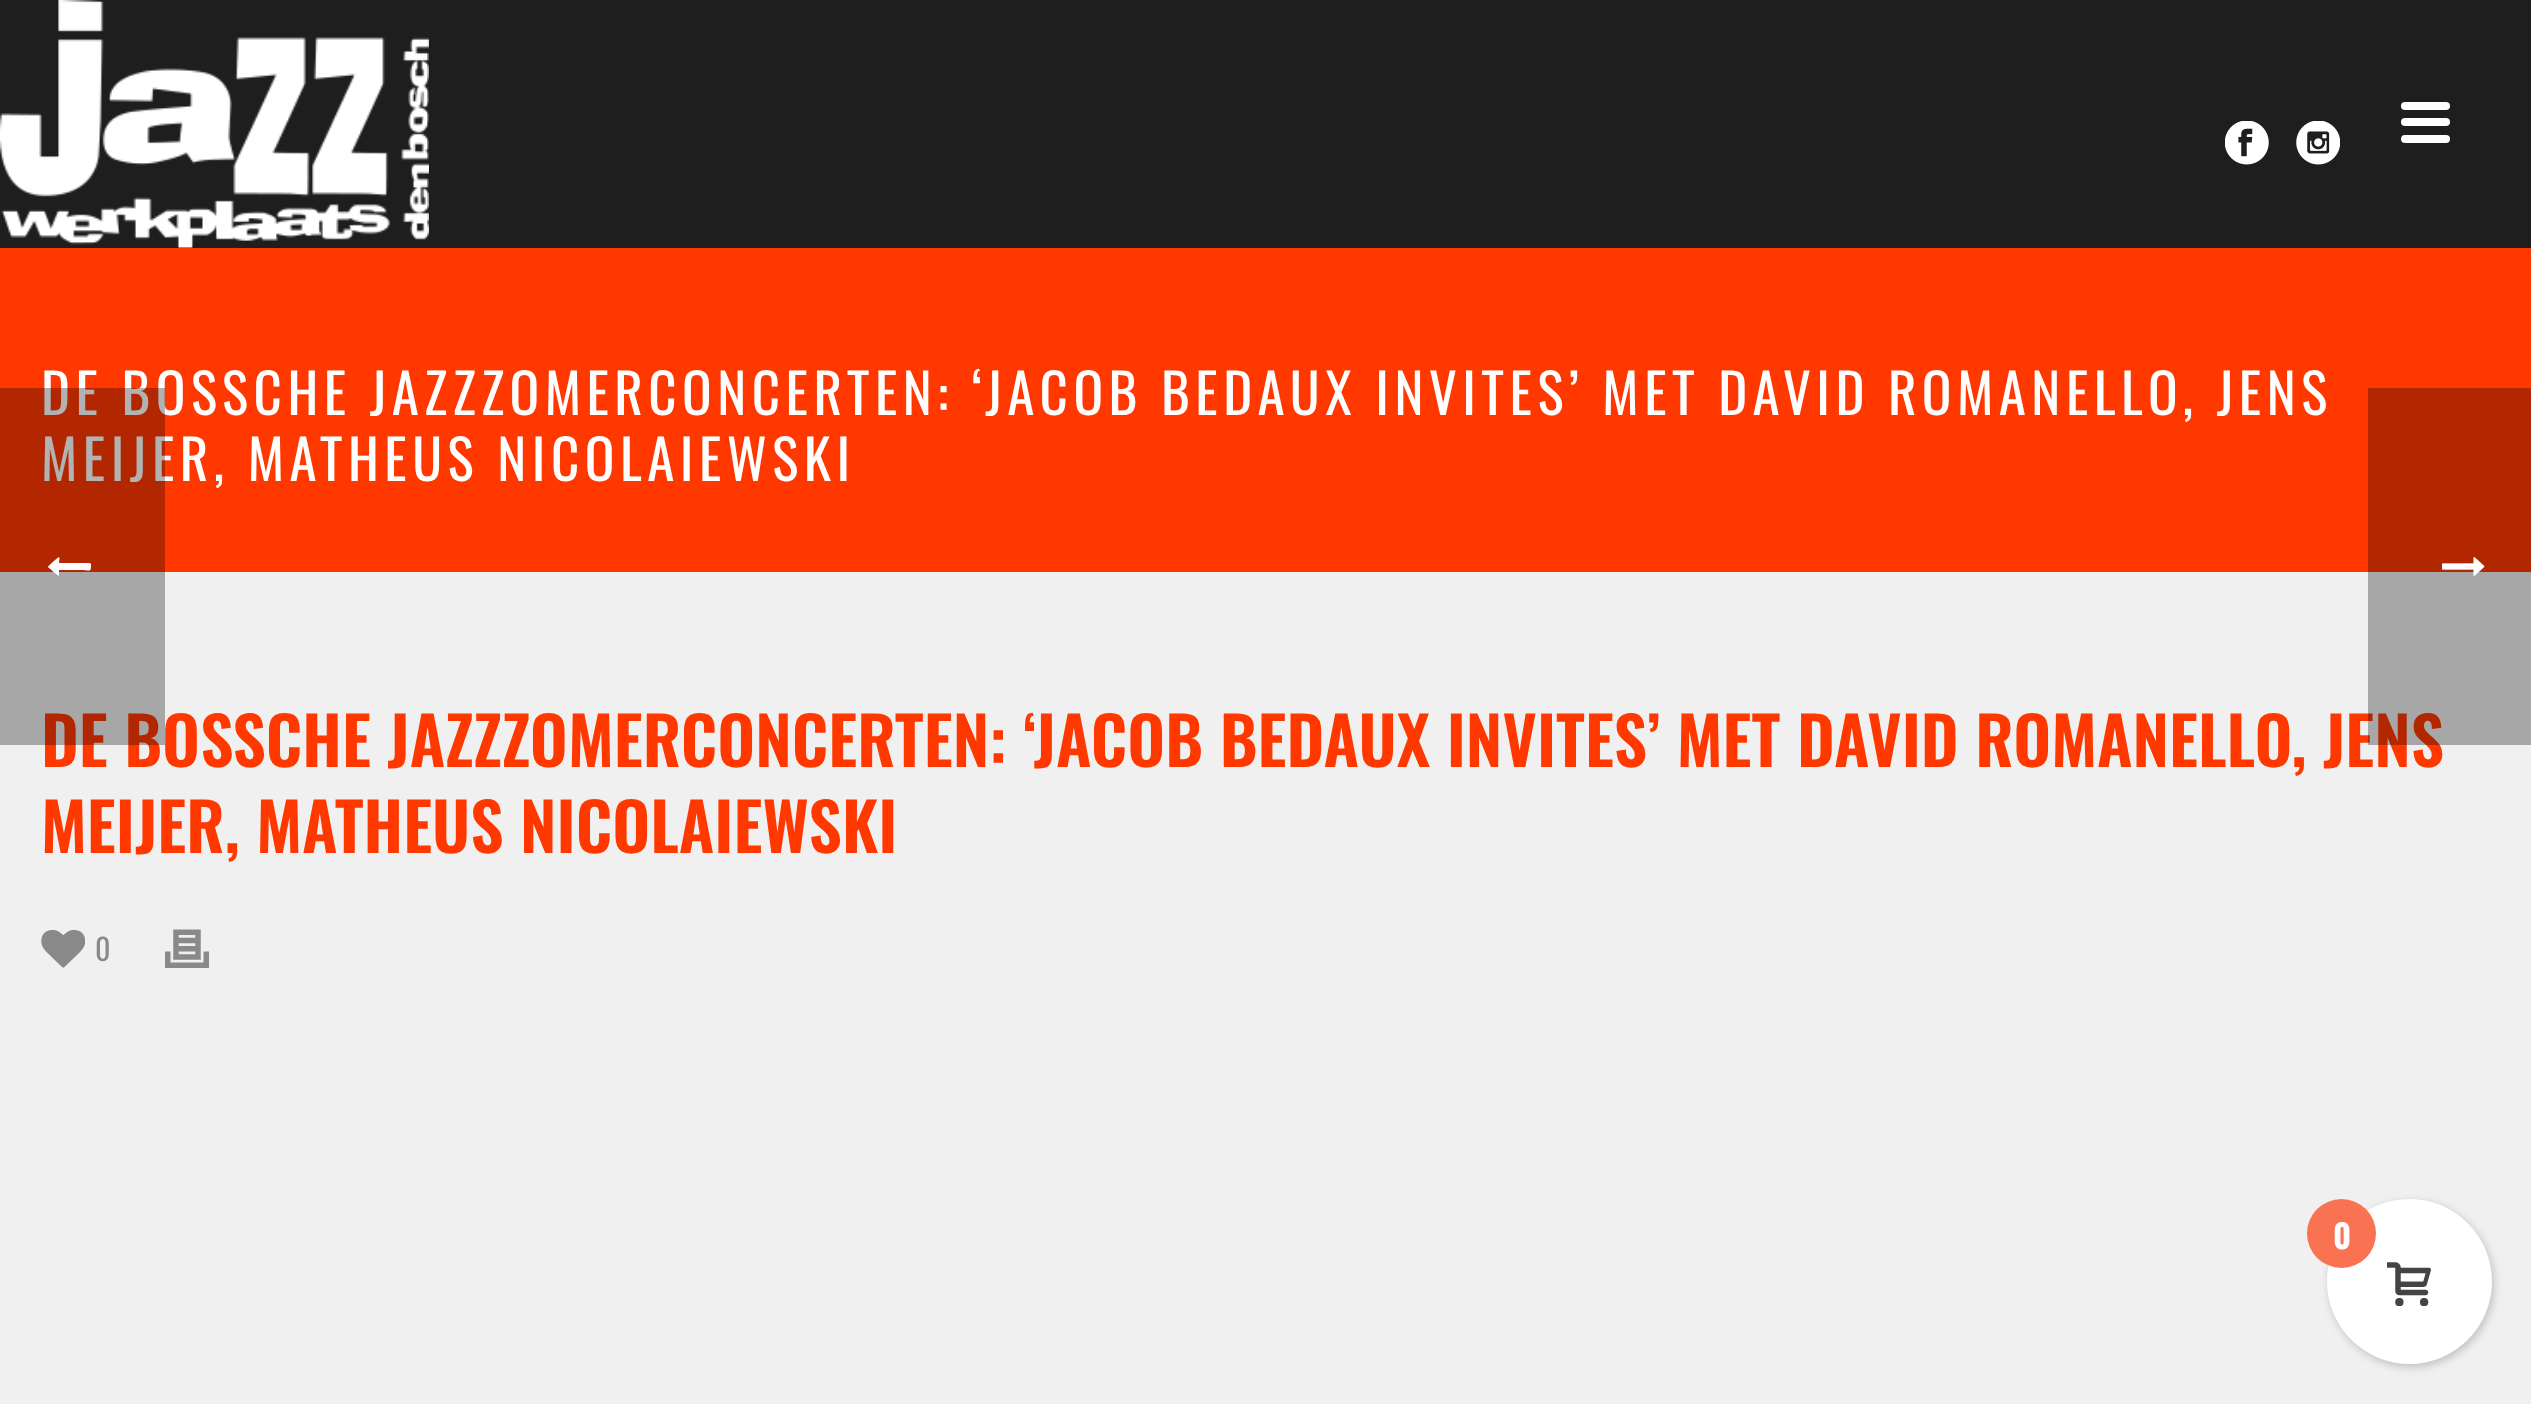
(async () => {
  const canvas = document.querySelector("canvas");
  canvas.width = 2531;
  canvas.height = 1404;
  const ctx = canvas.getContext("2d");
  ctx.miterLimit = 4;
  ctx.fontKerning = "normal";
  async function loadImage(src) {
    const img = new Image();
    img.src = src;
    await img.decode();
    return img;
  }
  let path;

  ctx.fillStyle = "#f0f0f0";
  ctx.fillRect(0, 0, 2531, 1404);
  ctx.fillStyle = "#ff3800";
  ctx.fillRect(0, 248, 2531, 324);
  ctx.fillStyle = "#1e1e1e";
  ctx.fillRect(0, 0, 2531, 248);
  ctx.drawImage(await loadImage("img/1.png"), 0, 0, 429, 248);
  ctx.fillStyle = "#ffffff";
  ctx.beginPath();
  ctx.roundRect(2401, 102, 49, 8, 4);
  ctx.fill();
  ctx.beginPath();
  ctx.roundRect(2401, 118, 49, 8, 4);
  ctx.fill();
  ctx.beginPath();
  ctx.roundRect(2401, 135, 49, 8, 4);
  ctx.fill();
  ctx.drawImage(await loadImage("img/2.png"), 2225, 121, 44, 44);
  ctx.drawImage(await loadImage("img/3.png"), 2296, 121, 44, 44);
  ctx.drawImage(await loadImage("img/4.png"), 41, 929, 44, 39);
  ctx.drawImage(await loadImage("img/5.png"), 165, 929, 44, 39);
  ctx.fillStyle = "rgba(0, 0, 0, 0.2)";
  ctx.filter = "blur(4px)";
  ctx.beginPath();
  ctx.roundRect(2329, 1202, 165, 165, 82.5);
  ctx.fill();
  ctx.filter = "none";
  ctx.fillStyle = "#ffffff";
  ctx.beginPath();
  ctx.arc(2409.5, 1281.5, 82.5, 0, Math.PI * 2);
  ctx.fill();
  ctx.fillStyle = "#f97352";
  ctx.beginPath();
  ctx.arc(2341.5, 1233.5, 34.5, 0, Math.PI * 2);
  ctx.fill();
  ctx.drawImage(await loadImage("img/7.png"), 2387, 1262, 44, 44);
  ctx.letterSpacing = "5.5px";
  ctx.font = "55px Oswald";
  ctx.fillStyle = "#ffffff";
  ctx.fillText("DE BOSSCHE JAZZZOMERCONCERTEN: ‘JACOB BEDAUX INVITES’ MET DAVID ROMANELLO, JENS", 41, 415);
  ctx.fillText("MEIJER, MATHEUS NICOLAIEWSKI", 41, 481);
  ctx.letterSpacing = "0px";
  ctx.font = "600 66px Oswald";
  ctx.fillStyle = "#ff3800";
  ctx.fillText("DE BOSSCHE JAZZZOMERCONCERTEN: ‘JACOB BEDAUX INVITES’ MET DAVID ROMANELLO, JENS", 41, 767);
  ctx.fillText("MEIJER, MATHEUS NICOLAIEWSKI", 41, 853);
  ctx.font = "30px Oswald";
  ctx.fillStyle = "#898989";
  ctx.fillText("0", 95, 961);
  ctx.fillStyle = "rgba(0, 0, 0, 0.3)";
  ctx.fillRect(0, 388, 165, 357);
  ctx.fillStyle = "#ffffff";
  path = new Path2D("M91 564C91 573 91 570 80 570H59V576C58 576 48 567 48 567C48 566 58 557 59 557C60 558 59 562 59 563H90Z");
  ctx.fill(path);
  ctx.fillStyle = "rgba(0, 0, 0, 0.3)";
  ctx.fillRect(2368, 388, 163, 357);
  ctx.drawImage(await loadImage("img/6.png"), 2442, 557, 43, 19);
  ctx.font = "bold 33px Oswald";
  ctx.fillStyle = "#ffffff";
  ctx.fillText("0", 2333, 1249);
})();
